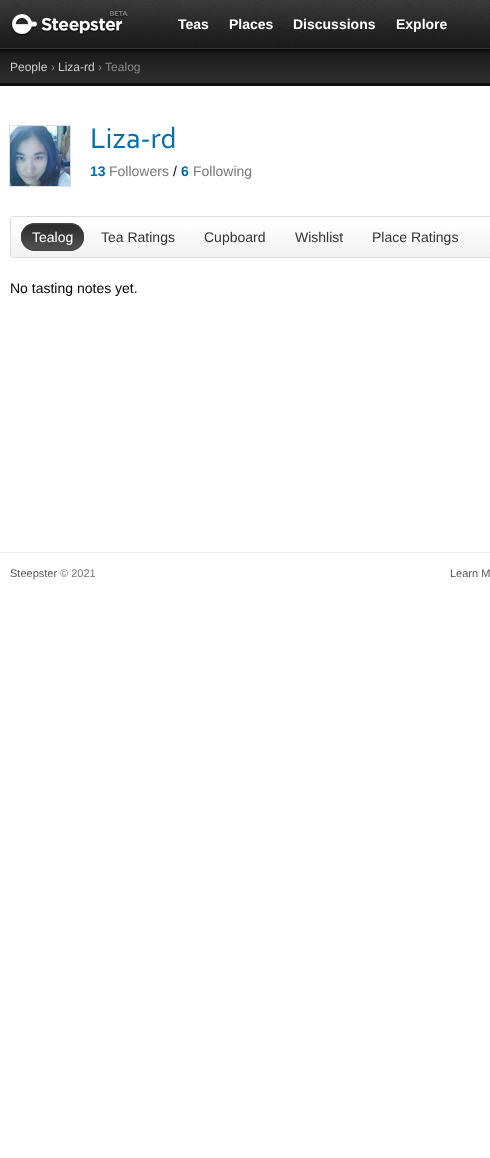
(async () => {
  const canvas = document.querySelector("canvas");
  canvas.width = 490;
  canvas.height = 1158;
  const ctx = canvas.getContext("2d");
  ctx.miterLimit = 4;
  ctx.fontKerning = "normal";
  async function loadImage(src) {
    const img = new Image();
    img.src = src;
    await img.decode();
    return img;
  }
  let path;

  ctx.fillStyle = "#ffffff";
  ctx.fillRect(0, 0, 490, 1158);
  ctx.drawImage(await loadImage("img/1.png"), 0, 0, 490, 48);
  ctx.drawImage(await loadImage("img/2.png"), 11, 11, 117, 25);
  ctx.fillStyle = "#111111";
  ctx.fillRect(0, 83, 490, 3);
  ctx.drawImage(await loadImage("img/3.png"), 0, 49, 490, 34);
  ctx.fillStyle = "#333333";
  ctx.fillRect(0, 48, 490, 1);
  ctx.drawImage(await loadImage("img/4.png"), 10, 126, 60, 60);
  ctx.strokeStyle = "#dddddd";
  ctx.strokeRect(9.5, 125.5, 61, 61);
  ctx.drawImage(await loadImage("img/5.png"), 10, 224, 480, 33);
  path = new Path2D("M14 216.5H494.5V257.5H14C12 257.5 10.5 256 10.5 254V220C10.5 218 12 216.5 14 216.5Z");
  ctx.stroke(path);
  ctx.fillStyle = "#4e4e4e";
  ctx.beginPath();
  ctx.roundRect(21, 223, 63, 28, 14);
  ctx.fill();
  ctx.drawImage(await loadImage("img/6.png"), 21, 224, 63, 25);
  ctx.beginPath();
  ctx.roundRect(21.5, 223.5, 62, 27, 13.5);
  ctx.strokeStyle = "#444444";
  ctx.stroke();
  ctx.fillStyle = "#eeeeee";
  ctx.fillRect(0, 552, 490, 1);
  ctx.font = "bold 14px Liberation Sans";
  ctx.fillStyle = "#ffffff";
  for (const [text, x, y] of [
    ["Teas", 178, 29],
    ["Places", 229, 29],
    ["Discussions", 293, 29],
    ["Explore", 396, 29],
  ]) {
    ctx.fillText(text, x, y);
  }
  ctx.font = "12px Liberation Sans";
  ctx.fillStyle = "#cccccc";
  ctx.fillText("People", 10, 71);
  ctx.fillStyle = "#888888";
  ctx.fillText("›", 51, 71);
  ctx.fillStyle = "#cccccc";
  ctx.fillText("Liza-rd", 58, 71);
  ctx.fillStyle = "#888888";
  ctx.fillText("› Tealog", 98, 71);
  ctx.font = "30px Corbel";
  ctx.fillStyle = "#006ea8";
  ctx.fillText("Liza-rd", 90, 148);
  ctx.font = "bold 14px Liberation Sans";
  ctx.fillText("13", 90, 176);
  ctx.font = "14px Liberation Sans";
  ctx.fillStyle = "#777777";
  ctx.fillText("Followers", 109, 176);
  ctx.fillStyle = "#000000";
  ctx.fillText("/", 173, 176);
  ctx.font = "bold 14px Liberation Sans";
  ctx.fillStyle = "#006ea8";
  ctx.fillText("6", 181, 176);
  ctx.font = "14px Liberation Sans";
  ctx.fillStyle = "#777777";
  ctx.fillText("Following", 193, 176);
  ctx.fillStyle = "#ffffff";
  ctx.fillText("Tealog", 32, 242);
  ctx.fillStyle = "#333333";
  for (const [text, x, y] of [
    ["Tea Ratings", 101, 242],
    ["Cupboard", 204, 242],
    ["Wishlist", 295, 242],
    ["Place Ratings", 372, 242],
  ]) {
    ctx.fillText(text, x, y);
  }
  ctx.fillStyle = "#000000";
  ctx.fillText("No tasting notes yet.", 10, 293);
  ctx.font = "11px Liberation Sans";
  ctx.fillStyle = "#555555";
  ctx.fillText("Steepster", 10, 577);
  ctx.fillStyle = "#777777";
  ctx.fillText("© 2021", 60, 577);
  ctx.fillStyle = "#555555";
  ctx.fillText("Learn M", 450, 577);
})();
